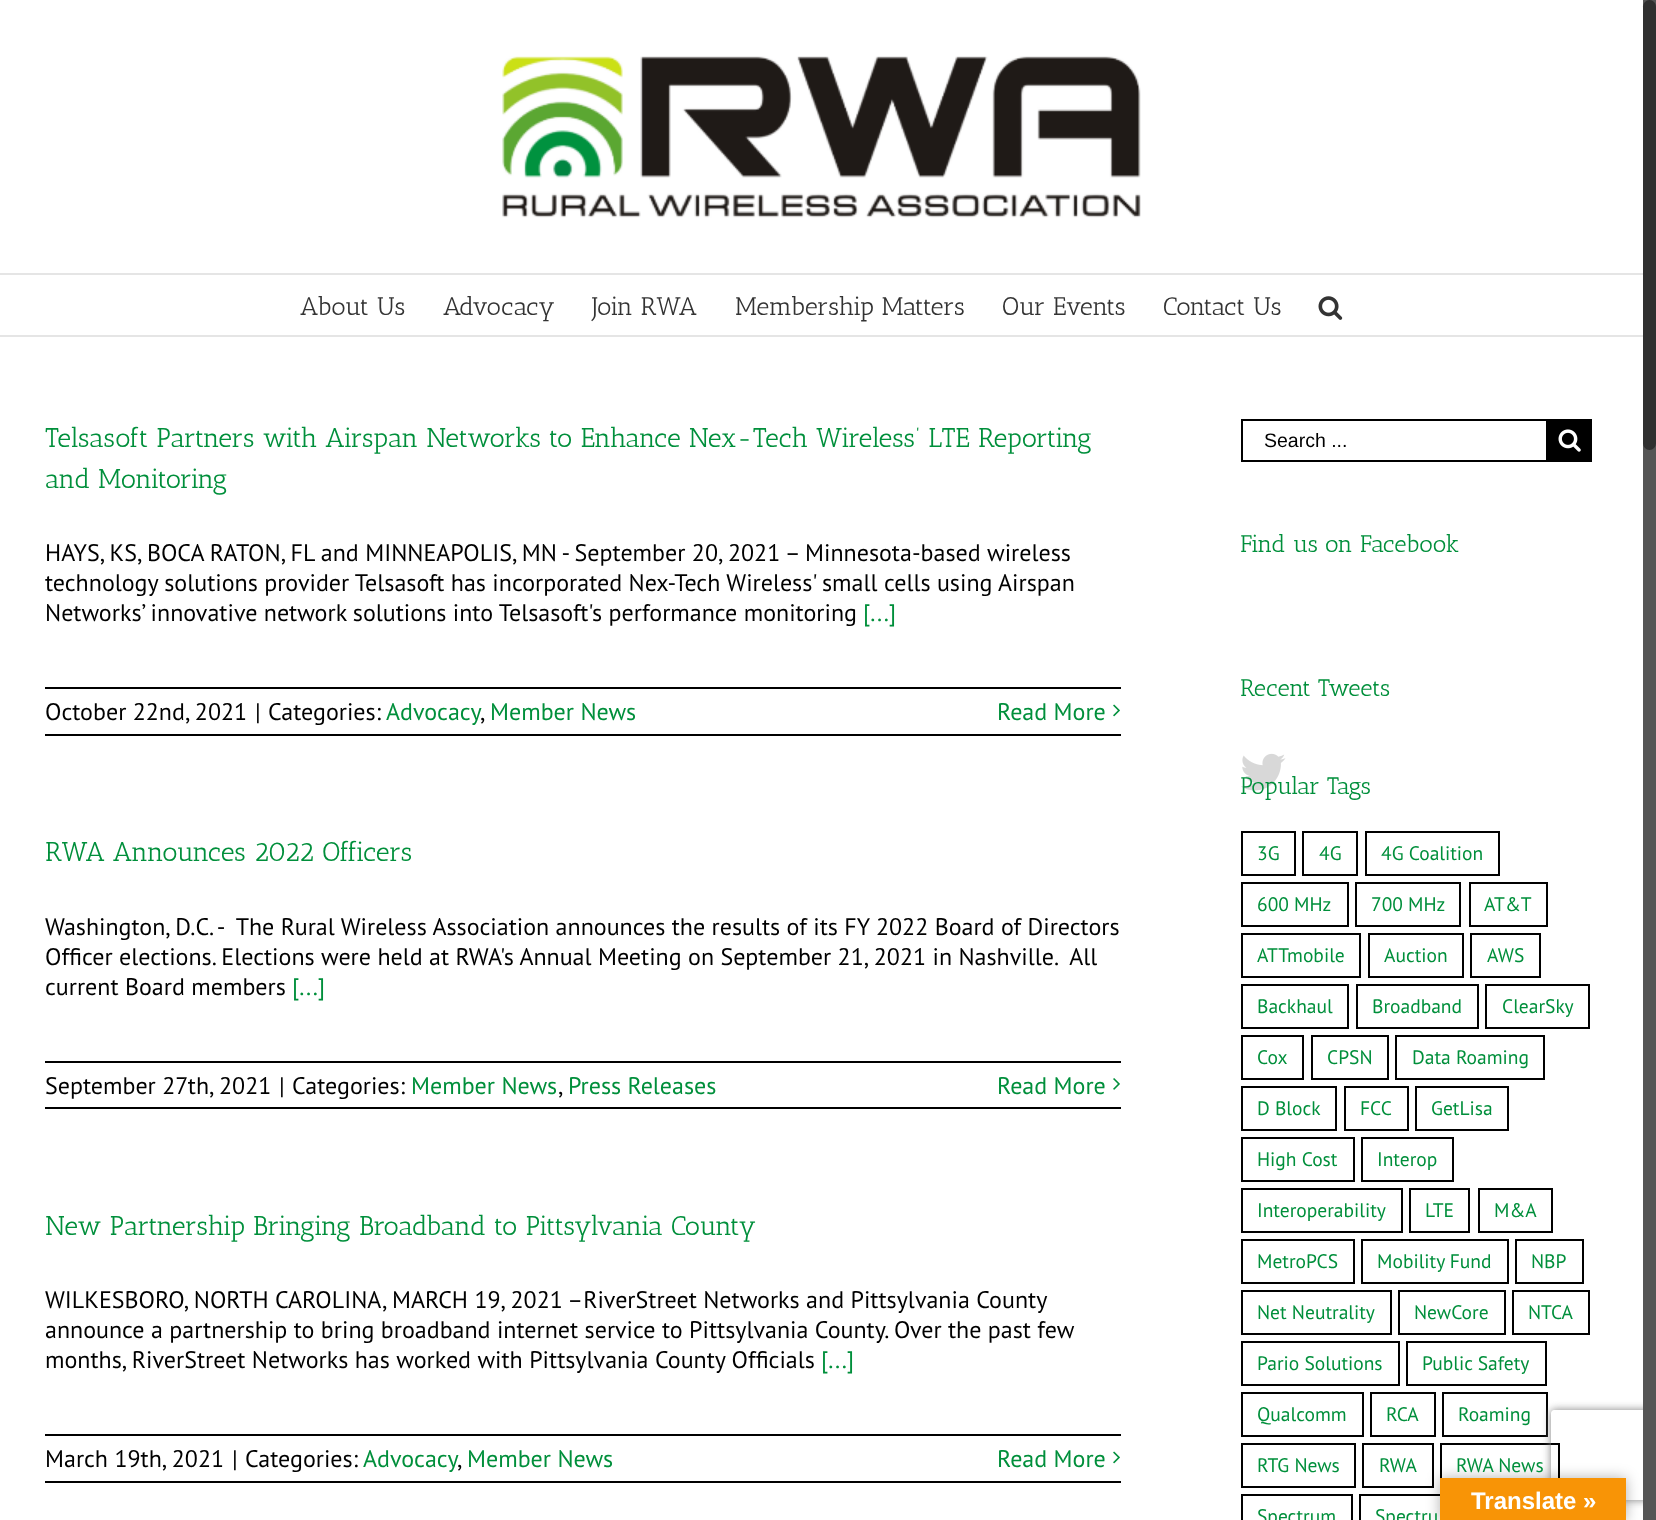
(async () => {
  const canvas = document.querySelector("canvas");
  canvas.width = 1656;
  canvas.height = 1520;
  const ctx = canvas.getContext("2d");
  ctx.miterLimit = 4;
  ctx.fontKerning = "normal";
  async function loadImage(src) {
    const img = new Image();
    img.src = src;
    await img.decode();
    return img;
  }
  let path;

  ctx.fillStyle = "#ffffff";
  ctx.fillRect(0, 0, 1656, 1520);
  ctx.fillStyle = "#e5e5e5";
  ctx.fillRect(0, 273, 1643, 2);
  ctx.drawImage(await loadImage("img/1.png"), 502, 56, 639, 162);
  ctx.fillRect(0, 335, 1643, 2);
  ctx.drawImage(await loadImage("img/2.png"), 1318, 296, 25, 24);
  ctx.fillStyle = "#000000";
  ctx.fillRect(45, 687, 1076, 2);
  ctx.fillRect(45, 734, 1076, 2);
  ctx.drawImage(await loadImage("img/3.png"), 1113, 704, 7, 13);
  ctx.fillRect(45, 1061, 1076, 2);
  ctx.fillRect(45, 1107, 1076, 2);
  ctx.drawImage(await loadImage("img/4.png"), 1113, 1078, 7, 12);
  ctx.fillRect(45, 1434, 1076, 2);
  ctx.fillRect(45, 1481, 1076, 2);
  ctx.drawImage(await loadImage("img/3.png"), 1113, 1451, 7, 13);
  ctx.strokeStyle = "#000000";
  ctx.lineWidth = 2;
  ctx.strokeRect(1242, 420, 305, 41);
  ctx.fillRect(1548, 419, 44, 43);
  ctx.drawImage(await loadImage("img/5.png"), 1558, 429, 23, 23);
  ctx.drawImage(await loadImage("img/6.png"), 1241, 753, 45, 38);
  ctx.strokeRect(1242, 832, 53, 43);
  ctx.strokeRect(1303, 832, 54, 43);
  ctx.strokeRect(1366, 832, 133, 43);
  ctx.strokeRect(1242, 883, 106, 43);
  ctx.strokeRect(1356, 883, 104, 43);
  ctx.strokeRect(1470, 883, 77, 43);
  ctx.strokeRect(1242, 934, 118, 43);
  ctx.strokeRect(1369, 934, 94, 43);
  ctx.strokeRect(1471, 934, 69, 43);
  ctx.strokeRect(1242, 985, 106, 43);
  ctx.strokeRect(1357, 985, 121, 43);
  ctx.strokeRect(1486, 985, 103, 43);
  ctx.strokeRect(1242, 1036, 61, 43);
  ctx.strokeRect(1312, 1036, 76, 43);
  ctx.strokeRect(1396, 1036, 148, 43);
  ctx.strokeRect(1242, 1087, 94, 43);
  ctx.strokeRect(1345, 1087, 63, 43);
  ctx.strokeRect(1416, 1087, 92, 43);
  ctx.strokeRect(1242, 1138, 112, 43);
  ctx.strokeRect(1362, 1138, 91, 43);
  ctx.strokeRect(1242, 1189, 160, 43);
  ctx.strokeRect(1410, 1189, 59, 43);
  ctx.strokeRect(1479, 1189, 73, 43);
  ctx.strokeRect(1242, 1240, 112, 43);
  ctx.strokeRect(1362, 1240, 146, 43);
  ctx.strokeRect(1516, 1240, 67, 43);
  ctx.strokeRect(1242, 1291, 149, 43);
  ctx.strokeRect(1399, 1291, 106, 43);
  ctx.strokeRect(1513, 1291, 76, 43);
  ctx.strokeRect(1242, 1342, 157, 43);
  ctx.strokeRect(1407, 1342, 139, 43);
  ctx.strokeRect(1242, 1393, 121, 43);
  ctx.strokeRect(1371, 1393, 64, 43);
  ctx.strokeRect(1443, 1393, 104, 43);
  ctx.strokeRect(1242, 1444, 113, 43);
  ctx.strokeRect(1363, 1444, 70, 43);
  ctx.strokeRect(1441, 1444, 118, 43);
  ctx.strokeRect(1242, 1495, 110, 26);
  ctx.strokeRect(1360, 1495, 130, 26);
  ctx.fillStyle = "rgba(0, 0, 0, 0.3)";
  ctx.filter = "blur(7px)";
  ctx.beginPath();
  ctx.rect(1440, 1478, 186, 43);
  ctx.fill();
  ctx.filter = "none";
  ctx.save();
  path = new Path2D("M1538 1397H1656V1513H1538ZM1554 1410H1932C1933.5 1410 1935 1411.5 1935 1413V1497C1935 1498.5 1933.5 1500 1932 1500H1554C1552.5 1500 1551 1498.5 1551 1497V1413C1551 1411.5 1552.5 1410 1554 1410Z");
  ctx.clip(path, "evenodd");
  ctx.fillStyle = "#808080";
  ctx.filter = "blur(4px)";
  ctx.beginPath();
  ctx.roundRect(1551, 1410, 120, 90, 3);
  ctx.fill();
  ctx.filter = "none";
  ctx.restore();
  ctx.fillStyle = "#555555";
  ctx.fillRect(1643, 0, 13, 1520);
  ctx.fillStyle = "#303030";
  ctx.beginPath();
  ctx.roundRect(1643, 0, 13, 450, 6.5);
  ctx.fill();
  ctx.fillStyle = "#f89406";
  ctx.fillRect(1440, 1478, 186, 42);
  ctx.font = "25.5px Antic Slab";
  ctx.fillStyle = "#333333";
  for (const [text, x, y] of [
    ["About Us", 300, 315],
    ["Advocacy", 443, 315],
    ["Join RWA", 592, 315],
    ["Membership Matters", 735, 315],
    ["Our Events", 1002, 315],
    ["Contact Us", 1163, 315],
  ]) {
    ctx.fillText(text, x, y);
  }
  ctx.font = "27px Antic Slab";
  ctx.fillStyle = "#008f3b";
  ctx.fillText("Telsasoft Partners with Airspan Networks to Enhance Nex-Tech Wireless’ LTE Reporting", 45, 447);
  ctx.fillText("and Monitoring", 45, 488);
  ctx.font = "24px PT Sans";
  ctx.fillStyle = "#000000";
  for (const [text, x, y] of [
    ["HAYS, KS, BOCA RATON, FL and MINNEAPOLIS, MN - September 20, 2021 – Minnesota-based wireless", 45, 561],
    ["technology solutions provider Telsasoft has incorporated Nex-Tech Wireless' small cells using Airspan", 45, 591],
    ["Networks’ innovative network solutions into Telsasoft's performance monitoring", 45, 621],
  ]) {
    ctx.fillText(text, x, y);
  }
  ctx.fillStyle = "#008f3b";
  ctx.fillText("[...]", 863, 621);
  ctx.fillStyle = "#000000";
  for (const [text, x, y] of [
    ["October 22nd, 2021", 45, 720],
    ["|", 255, 720],
    ["Categories:", 268, 720],
  ]) {
    ctx.fillText(text, x, y);
  }
  ctx.fillStyle = "#008f3b";
  ctx.fillText("Advocacy", 386, 720);
  ctx.fillStyle = "#000000";
  ctx.fillText(",", 480, 720);
  ctx.fillStyle = "#008f3b";
  ctx.fillText("Member News", 490, 720);
  ctx.fillText("Read More", 997, 720);
  ctx.font = "27px Antic Slab";
  ctx.fillText("RWA Announces 2022 Officers", 45, 861);
  ctx.font = "24px PT Sans";
  ctx.fillStyle = "#000000";
  for (const [text, x, y] of [
    ["Washington, D.C. -  The Rural Wireless Association announces the results of its FY 2022 Board of Directors", 45, 935],
    ["Officer elections. Elections were held at RWA's Annual Meeting on September 21, 2021 in Nashville.  All", 45, 965],
    ["current Board members", 45, 995],
  ]) {
    ctx.fillText(text, x, y);
  }
  ctx.fillStyle = "#008f3b";
  ctx.fillText("[...]", 292, 995);
  ctx.fillStyle = "#000000";
  for (const [text, x, y] of [
    ["September 27th, 2021", 45, 1094],
    ["|", 279, 1094],
    ["Categories:", 292, 1094],
  ]) {
    ctx.fillText(text, x, y);
  }
  ctx.fillStyle = "#008f3b";
  ctx.fillText("Member News", 411, 1094);
  ctx.fillStyle = "#000000";
  ctx.fillText(",", 558, 1094);
  ctx.fillStyle = "#008f3b";
  ctx.fillText("Press Releases", 568, 1094);
  ctx.fillText("Read More", 997, 1094);
  ctx.font = "27px Antic Slab";
  ctx.fillText("New Partnership Bringing Broadband to Pittsylvania County", 45, 1235);
  ctx.font = "24px PT Sans";
  ctx.fillStyle = "#000000";
  for (const [text, x, y] of [
    ["WILKESBORO, NORTH CAROLINA, MARCH 19, 2021 –RiverStreet Networks and Pittsylvania County", 45, 1308],
    ["announce a partnership to bring broadband internet service to Pittsylvania County. Over the past few", 45, 1338],
    ["months, RiverStreet Networks has worked with Pittsylvania County Officials", 45, 1368],
  ]) {
    ctx.fillText(text, x, y);
  }
  ctx.fillStyle = "#008f3b";
  ctx.fillText("[...]", 821, 1368);
  ctx.fillStyle = "#000000";
  for (const [text, x, y] of [
    ["March 19th, 2021", 45, 1467],
    ["|", 232, 1467],
    ["Categories:", 245, 1467],
  ]) {
    ctx.fillText(text, x, y);
  }
  ctx.fillStyle = "#008f3b";
  ctx.fillText("Advocacy", 363, 1467);
  ctx.fillStyle = "#000000";
  ctx.fillText(",", 457, 1467);
  ctx.fillStyle = "#008f3b";
  ctx.fillText("Member News", 467, 1467);
  ctx.fillText("Read More", 997, 1467);
  ctx.font = "19.5px Liberation Sans";
  ctx.fillStyle = "#000000";
  ctx.fillText("Search ...", 1264, 447);
  ctx.font = "24px Antic Slab";
  ctx.fillStyle = "#008f3b";
  for (const [text, x, y] of [
    ["Find us on Facebook", 1240, 552],
    ["Recent Tweets", 1240, 696],
    ["Popular Tags", 1240, 794],
  ]) {
    ctx.fillText(text, x, y);
  }
  ctx.font = "19.5px PT Sans";
  for (const [text, x, y] of [
    ["3G", 1257, 860],
    ["4G", 1319, 860],
    ["4G Coalition", 1381, 860],
    ["600 MHz", 1257, 911],
    ["700 MHz", 1371, 911],
    ["AT&T", 1484, 911],
    ["ATTmobile", 1257, 962],
    ["Auction", 1384, 962],
    ["AWS", 1487, 962],
    ["Backhaul", 1257, 1013],
    ["Broadband", 1372, 1013],
    ["ClearSky", 1502, 1013],
    ["Cox", 1257, 1064],
    ["CPSN", 1327, 1064],
    ["Data Roaming", 1412, 1064],
    ["D Block", 1257, 1115],
    ["FCC", 1360, 1115],
    ["GetLisa", 1431, 1115],
    ["High Cost", 1257, 1166],
    ["Interop", 1377, 1166],
    ["Interoperability", 1257, 1217],
    ["LTE", 1425, 1217],
    ["M&A", 1494, 1217],
    ["MetroPCS", 1257, 1268],
    ["Mobility Fund", 1377, 1268],
    ["NBP", 1531, 1268],
    ["Net Neutrality", 1257, 1319],
    ["NewCore", 1414, 1319],
    ["NTCA", 1528, 1319],
    ["Pario Solutions", 1257, 1370],
    ["Public Safety", 1422, 1370],
    ["Qualcomm", 1257, 1421],
    ["RCA", 1386, 1421],
    ["Roaming", 1458, 1421],
    ["RTG News", 1257, 1472],
    ["RWA", 1379, 1472],
    ["RWA News", 1456, 1472],
    ["Spectrum", 1257, 1523],
    ["Spectru", 1375, 1523],
  ]) {
    ctx.fillText(text, x, y);
  }
  ctx.font = "bold 24px Liberation Sans";
  ctx.fillStyle = "#ffffff";
  ctx.fillText("Translate »", 1471, 1509);
})();
